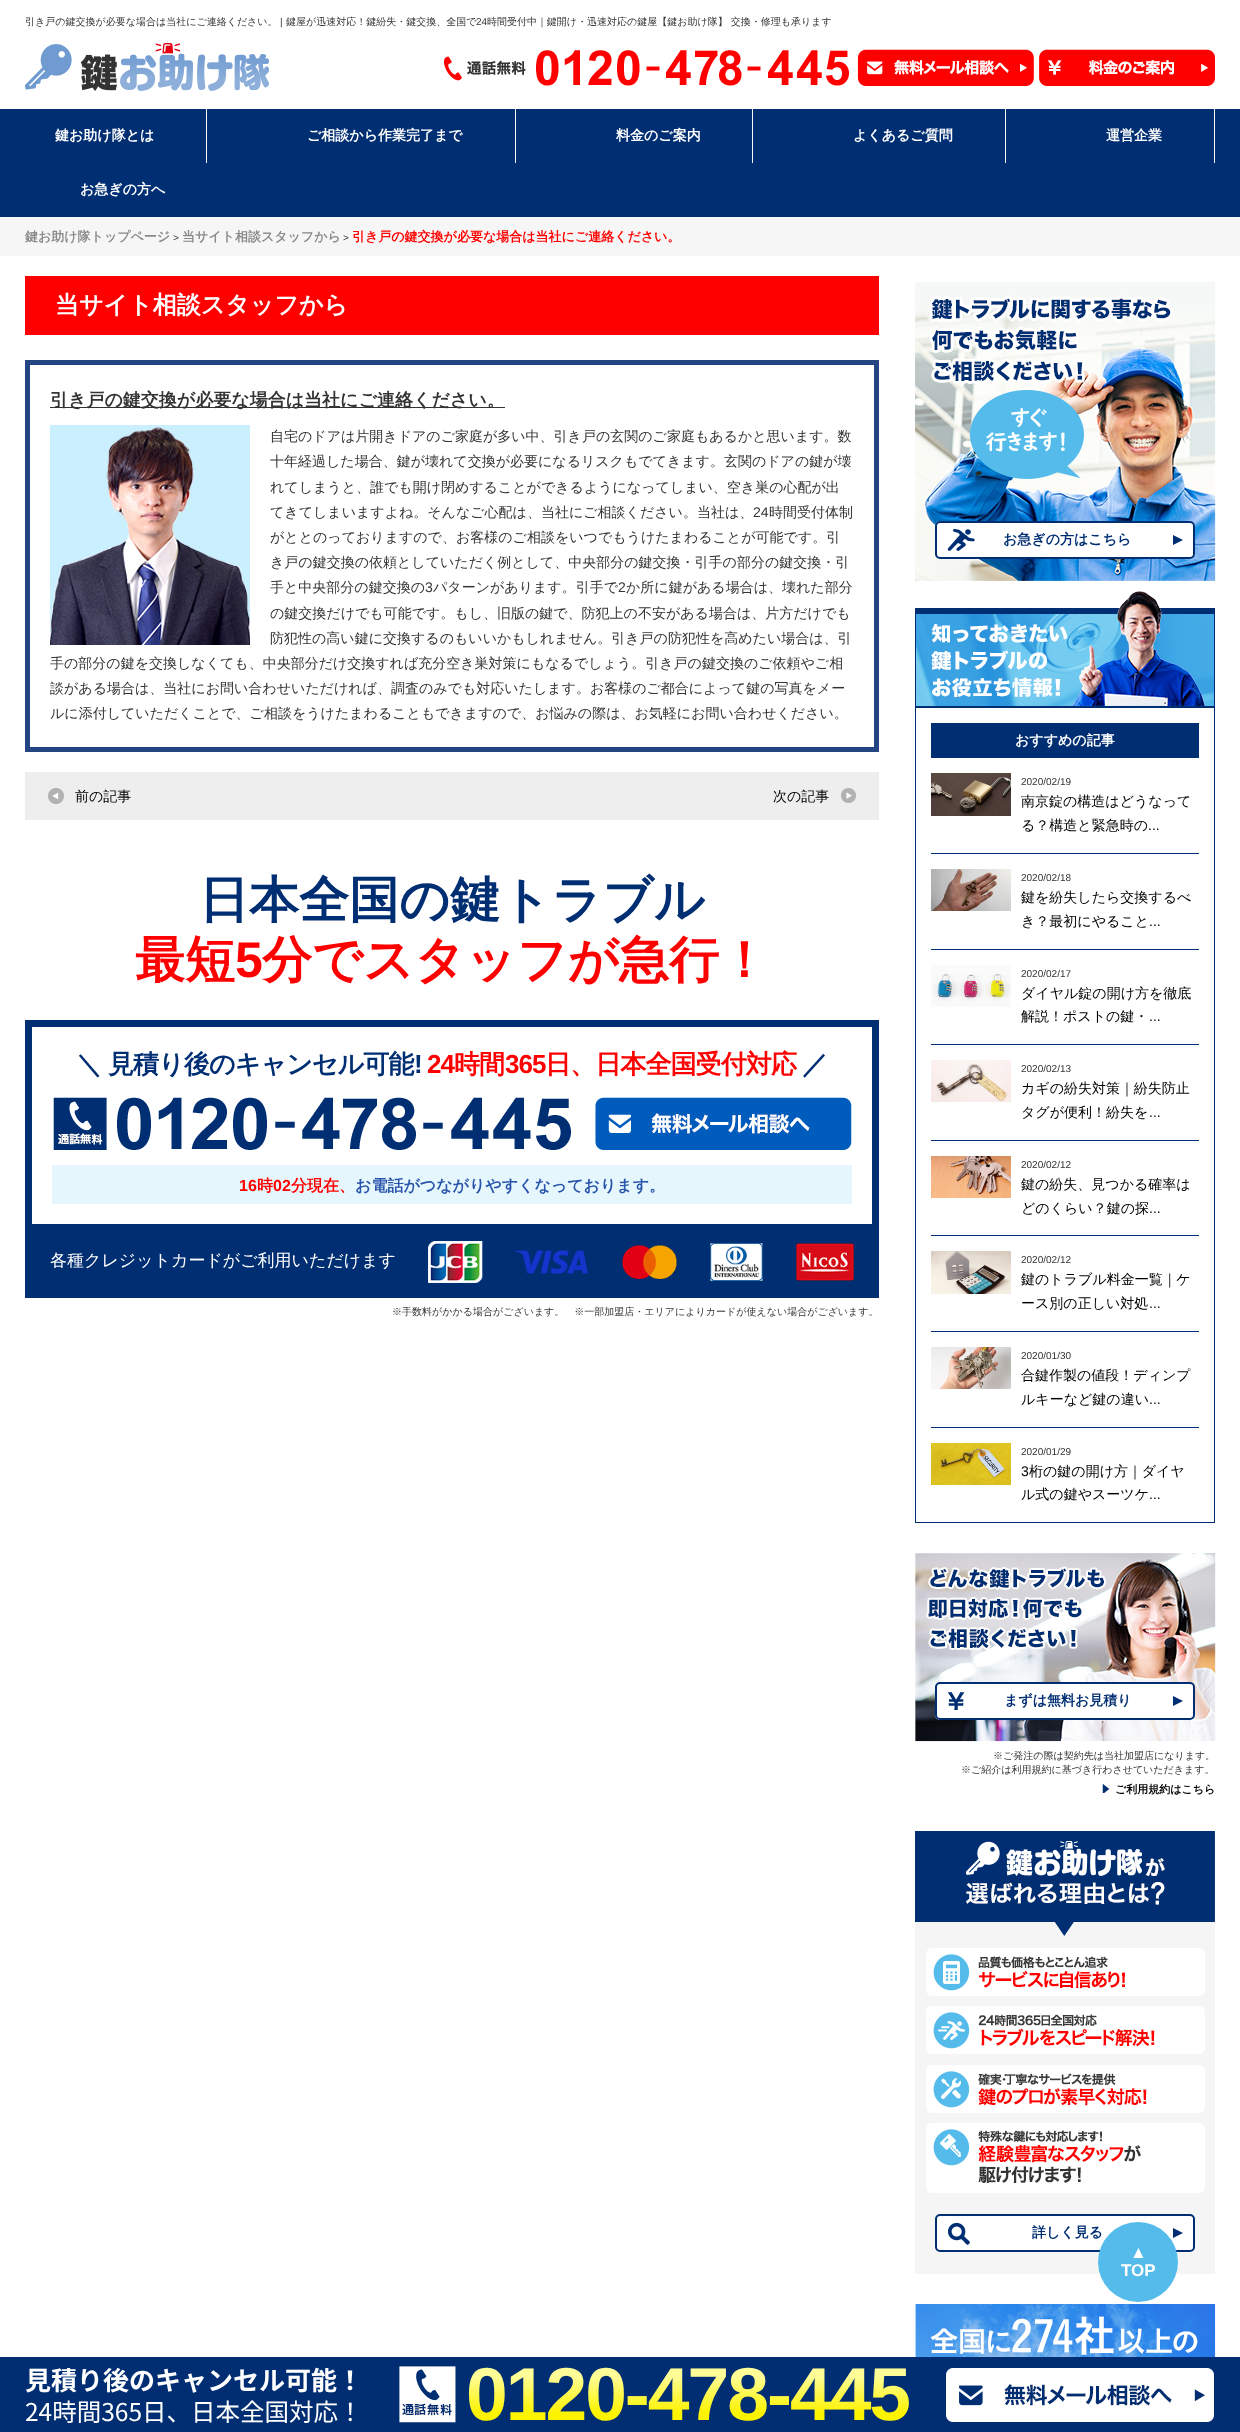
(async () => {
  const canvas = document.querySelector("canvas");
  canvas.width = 1240;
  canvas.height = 2432;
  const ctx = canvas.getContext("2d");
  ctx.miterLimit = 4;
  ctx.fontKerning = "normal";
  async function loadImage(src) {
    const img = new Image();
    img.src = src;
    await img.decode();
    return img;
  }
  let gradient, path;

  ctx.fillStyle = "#ffffff";
  ctx.fillRect(0, 0, 1240, 2432);
  ctx.drawImage(await loadImage("img/1.png"), 25, 43, 244, 48);
  ctx.drawImage(await loadImage("img/2.png"), 444, 50, 405, 36);
  ctx.drawImage(await loadImage("img/3.png"), 857, 49, 177, 37);
  ctx.drawImage(await loadImage("img/4.png"), 1039, 49, 176, 37);
  for (const [x, y, w, h, color] of [
    [0, 109, 1240, 108, "#002e73"],
    [206, 109, 1, 54, "#fafafa"],
    [515, 109, 1, 54, "#fafafa"],
    [752, 109, 1, 54, "#fafafa"],
    [1005, 109, 1, 54, "#fafafa"],
    [1214, 109, 1, 54, "#fafafa"],
    [0, 217, 1240, 39, "#f6f6f6"],
    [25, 276, 854, 59, "#ff0000"],
  ]) {
    ctx.fillStyle = color;
    ctx.fillRect(x, y, w, h);
  }
  ctx.strokeStyle = "#234682";
  ctx.lineWidth = 5;
  ctx.strokeRect(27.5, 362.5, 849, 387);
  ctx.fillStyle = "#333333";
  ctx.fillRect(50, 407, 455, 1);
  ctx.drawImage(await loadImage("img/5.png"), 50, 425, 200, 220);
  ctx.fillStyle = "#eeeeee";
  ctx.fillRect(25, 772, 854, 48);
  ctx.drawImage(await loadImage("img/6.png"), 48, 788, 16, 16);
  ctx.drawImage(await loadImage("img/7.png"), 841, 788, 15, 15);
  ctx.strokeStyle = "#002e73";
  ctx.lineWidth = 7;
  ctx.strokeRect(28.5, 1023.5, 847, 204);
  ctx.drawImage(await loadImage("img/8.png"), 53, 1097, 518, 53);
  ctx.drawImage(await loadImage("img/9.png"), 595, 1097, 257, 53);
  ctx.fillStyle = "#e5f7fd";
  ctx.fillRect(52, 1165, 800, 39);
  ctx.fillStyle = "#002e73";
  ctx.fillRect(25, 1231, 854, 67);
  ctx.drawImage(await loadImage("img/10.png"), 428, 1241, 426, 42);
  ctx.drawImage(await loadImage("img/11.png"), 915, 282, 301, 299);
  ctx.fillStyle = "#ffffff";
  ctx.beginPath();
  ctx.roundRect(935, 521, 260, 38, 5);
  ctx.fill();
  ctx.drawImage(await loadImage("img/12.png"), 947, 528, 28, 23);
  ctx.beginPath();
  ctx.roundRect(936, 522, 258, 36, 4);
  ctx.lineWidth = 2;
  ctx.stroke();
  ctx.fillStyle = "#002e73";
  path = new Path2D("M1173 545V535L1183 540Z");
  ctx.fill(path);
  ctx.drawImage(await loadImage("img/13.png"), 915, 591, 300, 116);
  ctx.lineWidth = 1;
  ctx.strokeRect(915.5, 707.5, 299, 815);
  ctx.fillRect(931, 723, 268, 35);
  ctx.fillRect(931, 853, 268, 1);
  ctx.drawImage(await loadImage("img/14.png"), 931, 773, 80, 43);
  ctx.fillRect(931, 949, 268, 1);
  ctx.drawImage(await loadImage("img/15.png"), 931, 869, 80, 42);
  ctx.fillRect(931, 1044, 268, 1);
  ctx.drawImage(await loadImage("img/16.png"), 931, 965, 80, 42);
  ctx.fillRect(931, 1140, 268, 1);
  ctx.drawImage(await loadImage("img/17.png"), 931, 1060, 80, 42);
  ctx.fillRect(931, 1235, 268, 1);
  ctx.drawImage(await loadImage("img/18.png"), 931, 1156, 80, 42);
  ctx.fillRect(931, 1331, 268, 1);
  ctx.drawImage(await loadImage("img/19.png"), 931, 1251, 80, 43);
  ctx.fillRect(931, 1427, 268, 1);
  ctx.drawImage(await loadImage("img/20.png"), 931, 1347, 80, 42);
  ctx.drawImage(await loadImage("img/21.png"), 931, 1443, 80, 42);
  ctx.drawImage(await loadImage("img/22.png"), 915, 1553, 301, 189);
  ctx.fillStyle = "#ffffff";
  ctx.beginPath();
  ctx.roundRect(935, 1682, 260, 38, 5);
  ctx.fill();
  ctx.drawImage(await loadImage("img/23.png"), 947, 1692, 18, 18);
  ctx.beginPath();
  ctx.roundRect(936, 1683, 258, 36, 4);
  ctx.lineWidth = 2;
  ctx.stroke();
  ctx.fillStyle = "#002e73";
  path = new Path2D("M1173 1706V1696L1183 1701Z");
  ctx.fill(path);
  ctx.drawImage(await loadImage("img/24.png"), 1102, 1783, 8, 10);
  ctx.drawImage(await loadImage("img/25.png"), 915, 1831, 300, 443);
  ctx.fillStyle = "#ffffff";
  ctx.beginPath();
  ctx.roundRect(935, 2214, 260, 38, 5);
  ctx.fill();
  ctx.drawImage(await loadImage("img/26.png"), 948, 2222, 22, 23);
  ctx.beginPath();
  ctx.roundRect(936, 2215, 258, 36, 4);
  ctx.stroke();
  ctx.fillStyle = "#002e73";
  path = new Path2D("M1173 2238V2228L1183 2233Z");
  ctx.fill(path);
  ctx.drawImage(await loadImage("img/27.png"), 915, 2304, 301, 53);
  ctx.fillStyle = "#012e72";
  ctx.fillRect(0, 2357, 1240, 75);
  ctx.drawImage(await loadImage("img/28.png"), 399, 2366, 57, 57);
  ctx.drawImage(await loadImage("img/29.png"), 946, 2368, 268, 54);
  ctx.font = "500 10px WenQuanYi Zen Hei";
  ctx.fillStyle = "#333333";
  ctx.fillText("引き戸の鍵交換が必要な場合は当社にご連絡ください。", 25, 25);
  ctx.font = "10px Liberation Sans";
  ctx.fillText("|", 280, 25);
  ctx.font = "500 10px WenQuanYi Zen Hei";
  ctx.fillText("鍵屋が迅速対応！鍵紛失・鍵交換、全国で", 286, 25);
  ctx.font = "10px Liberation Sans";
  ctx.fillText("24", 476, 25);
  ctx.font = "500 10px WenQuanYi Zen Hei";
  ctx.fillText("時間受付中｜鍵開け・迅速対応の鍵屋【鍵お助け隊】 交換・修理も承ります", 487, 25);
  ctx.font = "bold 14px WenQuanYi Zen Hei";
  ctx.fillStyle = "#ffffff";
  for (const [text, x, y] of [
    ["鍵お助け隊とは", 55, 140],
    ["ご相談から作業完了まで", 307, 140],
    ["料金のご案内", 616, 140],
    ["よくあるご質問", 853, 140],
    ["運営企業", 1106, 140],
    ["お急ぎの方へ", 80, 194],
  ]) {
    ctx.fillText(text, x, y);
  }
  ctx.font = "bold 13px WenQuanYi Zen Hei";
  ctx.fillStyle = "#898989";
  ctx.fillText("鍵お助け隊トップページ", 25, 241);
  ctx.font = "10px Liberation Sans";
  ctx.fillStyle = "#333333";
  ctx.fillText(">", 173, 241);
  ctx.font = "bold 13px WenQuanYi Zen Hei";
  ctx.fillStyle = "#898989";
  ctx.fillText("当サイト相談スタッフから", 182, 241);
  ctx.font = "10px Liberation Sans";
  ctx.fillStyle = "#333333";
  ctx.fillText(">", 343, 241);
  ctx.font = "bold 13px WenQuanYi Zen Hei";
  ctx.fillStyle = "#ff0000";
  ctx.fillText("引き戸の鍵交換が必要な場合は当社にご連絡ください。", 352, 241);
  ctx.font = "bold 24px WenQuanYi Zen Hei";
  ctx.fillStyle = "#ffffff";
  ctx.fillText("当サイト相談スタッフから", 55, 313);
  ctx.font = "bold 18px WenQuanYi Zen Hei";
  ctx.fillStyle = "#333333";
  ctx.fillText("引き戸の鍵交換が必要な場合は当社にご連絡ください。", 50, 406);
  ctx.font = "500 14px WenQuanYi Zen Hei";
  for (const [text, x, y] of [
    ["自宅のドアは片開きドアのご家庭が多い中、引き戸の玄関のご家庭もあるかと思います。数", 270, 441],
    ["十年経過した場合、鍵が壊れて交換が必要になるリスクもでてきます。玄関のドアの鍵が壊", 270, 466],
    ["れてしまうと、誰でも開け閉めすることができるようになってしまい、空き巣の心配が出", 270, 492],
    ["てきてしまいますよね。そんなご心配は、当社にご相談ください。当社は、", 270, 517],
  ]) {
    ctx.fillText(text, x, y);
  }
  ctx.font = "14px Liberation Sans";
  ctx.fillText("24", 753, 517);
  ctx.font = "500 14px WenQuanYi Zen Hei";
  for (const [text, x, y] of [
    ["時間受付体制", 769, 517],
    ["がととのっておりますので、お客様のご相談をいつでもうけたまわることが可能です。引", 270, 542],
    ["き戸の鍵交換の依頼としていただく例として、中央部分の鍵交換・引手の部分の鍵交換・引", 270, 567],
    ["手と中央部分の鍵交換の", 270, 592],
  ]) {
    ctx.fillText(text, x, y);
  }
  ctx.font = "14px Liberation Sans";
  ctx.fillText("3", 425, 592);
  ctx.font = "500 14px WenQuanYi Zen Hei";
  ctx.fillText("パターンがあります。引手で", 433, 592);
  ctx.font = "14px Liberation Sans";
  ctx.fillText("2", 618, 592);
  ctx.font = "500 14px WenQuanYi Zen Hei";
  for (const [text, x, y] of [
    ["か所に鍵がある場合は、壊れた部分", 626, 592],
    ["の鍵交換だけでも可能です。もし、旧版の鍵で、防犯上の不安がある場合は、片方だけでも", 270, 618],
    ["防犯性の高い鍵に交換するのもいいかもしれません。引き戸の防犯性を高めたい場合は、引", 270, 643],
    ["手の部分の鍵を交換しなくても、中央部分だけ交換すれば充分空き巣対策にもなるでしょう。引き戸の鍵交換のご依頼やご相", 50, 668],
    ["談がある場合は、当社にお問い合わせいただければ、調査のみでも対応いたします。お客様のご都合によって鍵の写真をメー", 50, 693],
    ["ルに添付していただくことで、ご相談をうけたまわることもできますので、お悩みの際は、お気軽にお問い合わせください。", 50, 718],
  ]) {
    ctx.fillText(text, x, y);
  }
  ctx.fillStyle = "#000000";
  ctx.fillText("前の記事", 75, 801);
  ctx.fillText("次の記事", 773, 801);
  ctx.font = "bold 50px WenQuanYi Zen Hei";
  ctx.fillStyle = "#002e73";
  ctx.fillText("日本全国", 199, 917);
  ctx.fillText("の鍵トラブル", 399, 917);
  ctx.fillStyle = "#ff0000";
  ctx.fillText("最短", 135, 977);
  ctx.font = "bold 50px Liberation Sans";
  ctx.fillText("5", 235, 977);
  ctx.font = "bold 50px WenQuanYi Zen Hei";
  ctx.fillText("分でスタッフが急行！", 262, 977);
  ctx.letterSpacing = "-0.9px";
  ctx.font = "bold 26px WenQuanYi Zen Hei";
  ctx.fillStyle = "#002e73";
  ctx.fillText("＼ 見積り後のキャンセル可能", 76, 1073);
  ctx.font = "bold 26px Liberation Sans";
  ctx.fillText("!", 414, 1073);
  ctx.fillStyle = "#ff0000";
  ctx.fillText("24", 427, 1073);
  ctx.font = "bold 26px WenQuanYi Zen Hei";
  ctx.fillText("時間", 454, 1073);
  ctx.font = "bold 26px Liberation Sans";
  ctx.fillText("365", 505, 1073);
  ctx.font = "bold 26px WenQuanYi Zen Hei";
  ctx.fillText("日、日本全国受付対応", 545, 1073);
  ctx.fillStyle = "#002e73";
  ctx.fillText("／", 802, 1073);
  ctx.letterSpacing = "0px";
  ctx.font = "bold 16px Liberation Sans";
  ctx.fillStyle = "#ff0000";
  ctx.fillText("16", 239, 1191);
  ctx.font = "bold 16px WenQuanYi Zen Hei";
  ctx.fillText("時", 257, 1191);
  ctx.font = "bold 16px Liberation Sans";
  ctx.fillText("02", 273, 1191);
  ctx.font = "bold 16px WenQuanYi Zen Hei";
  ctx.fillText("分現在、", 291, 1191);
  ctx.fillStyle = "#2853aa";
  ctx.fillText("お電話がつながりやすくなっております。", 355, 1191);
  ctx.font = "500 17px WenQuanYi Zen Hei";
  ctx.fillStyle = "#ffffff";
  ctx.fillText("各種クレジットカードがご利用いただけます", 50, 1266);
  ctx.font = "500 10px WenQuanYi Zen Hei";
  ctx.fillStyle = "#333333";
  ctx.fillText("※手数料がかかる場合がございます。　※一部加盟店・エリアによりカードが使えない場合がございます。", 392, 1315);
  ctx.font = "bold 14px WenQuanYi Zen Hei";
  ctx.fillStyle = "#002e73";
  ctx.fillText("お急ぎの方はこちら", 1003, 544);
  ctx.fillStyle = "#ffffff";
  ctx.fillText("おすすめの記事", 1015, 745);
  ctx.font = "10px Liberation Sans";
  ctx.fillStyle = "#333333";
  ctx.fillText("2020/02/19", 1021, 785);
  ctx.font = "500 14px WenQuanYi Zen Hei";
  ctx.fillStyle = "#000000";
  ctx.fillText("南京錠の構造はどうなって", 1021, 806);
  ctx.fillText("る？構造と緊急時の", 1021, 830);
  ctx.font = "14px Liberation Sans";
  ctx.fillText("...", 1148, 830);
  ctx.font = "10px Liberation Sans";
  ctx.fillStyle = "#333333";
  ctx.fillText("2020/02/18", 1021, 881);
  ctx.font = "500 14px WenQuanYi Zen Hei";
  ctx.fillStyle = "#000000";
  ctx.fillText("鍵を紛失したら交換するべ", 1021, 902);
  ctx.fillText("き？最初にやること", 1021, 926);
  ctx.font = "14px Liberation Sans";
  ctx.fillText("...", 1149, 926);
  ctx.font = "10px Liberation Sans";
  ctx.fillStyle = "#333333";
  ctx.fillText("2020/02/17", 1021, 977);
  ctx.font = "500 14px WenQuanYi Zen Hei";
  ctx.fillStyle = "#000000";
  ctx.fillText("ダイヤル錠の開け方を徹底", 1021, 998);
  ctx.fillText("解説！ポストの鍵・", 1021, 1021);
  ctx.font = "14px Liberation Sans";
  ctx.fillText("...", 1149, 1021);
  ctx.font = "10px Liberation Sans";
  ctx.fillStyle = "#333333";
  ctx.fillText("2020/02/13", 1021, 1072);
  ctx.font = "500 14px WenQuanYi Zen Hei";
  ctx.fillStyle = "#000000";
  ctx.fillText("カギの紛失対策｜紛失防止", 1021, 1093);
  ctx.fillText("タグが便利！紛失を", 1021, 1117);
  ctx.font = "14px Liberation Sans";
  ctx.fillText("...", 1149, 1117);
  ctx.font = "10px Liberation Sans";
  ctx.fillStyle = "#333333";
  ctx.fillText("2020/02/12", 1021, 1168);
  ctx.font = "500 14px WenQuanYi Zen Hei";
  ctx.fillStyle = "#000000";
  ctx.fillText("鍵の紛失、見つかる確率は", 1021, 1189);
  ctx.fillText("どのくらい？鍵の探", 1021, 1213);
  ctx.font = "14px Liberation Sans";
  ctx.fillText("...", 1149, 1213);
  ctx.font = "10px Liberation Sans";
  ctx.fillStyle = "#333333";
  ctx.fillText("2020/02/12", 1021, 1263);
  ctx.font = "500 14px WenQuanYi Zen Hei";
  ctx.fillStyle = "#000000";
  ctx.fillText("鍵のトラブル料金一覧｜ケ", 1021, 1284);
  ctx.fillText("ース別の正しい対処", 1021, 1308);
  ctx.font = "14px Liberation Sans";
  ctx.fillText("...", 1149, 1308);
  ctx.font = "10px Liberation Sans";
  ctx.fillStyle = "#333333";
  ctx.fillText("2020/01/30", 1021, 1359);
  ctx.font = "500 14px WenQuanYi Zen Hei";
  ctx.fillStyle = "#000000";
  ctx.fillText("合鍵作製の値段！ディンプ", 1021, 1380);
  ctx.fillText("ルキーなど鍵の違い", 1021, 1404);
  ctx.font = "14px Liberation Sans";
  ctx.fillText("...", 1149, 1404);
  ctx.font = "10px Liberation Sans";
  ctx.fillStyle = "#333333";
  ctx.fillText("2020/01/29", 1021, 1455);
  ctx.font = "14px Liberation Sans";
  ctx.fillStyle = "#000000";
  ctx.fillText("3", 1021, 1476);
  ctx.font = "500 14px WenQuanYi Zen Hei";
  ctx.fillText("桁の鍵の開け方｜ダイヤ", 1029, 1476);
  ctx.fillText("ル式の鍵やスーツケ", 1021, 1499);
  ctx.font = "14px Liberation Sans";
  ctx.fillText("...", 1149, 1499);
  ctx.font = "bold 14px WenQuanYi Zen Hei";
  ctx.fillStyle = "#002e73";
  ctx.fillText("まずは無料お見積り", 1004, 1705);
  ctx.font = "500 10px WenQuanYi Zen Hei";
  ctx.fillStyle = "#333333";
  ctx.fillText("※ご発注の際は契約先は当社加盟店になります。", 993, 1759);
  ctx.fillText("※ご紹介は利用規約に基づき行わさせていただきます。", 961, 1773);
  ctx.font = "bold 11px WenQuanYi Zen Hei";
  ctx.fillStyle = "#000000";
  ctx.fillText("ご利用規約はこちら", 1115, 1793);
  ctx.font = "bold 14px WenQuanYi Zen Hei";
  ctx.fillStyle = "#002e73";
  ctx.fillText("詳しく見る", 1032, 2237);
  ctx.fillStyle = "#55bbeb";
  ctx.beginPath();
  ctx.arc(1138, 2262, 40, 0, Math.PI * 2);
  ctx.fill();
  ctx.font = "bold 17px Liberation Sans";
  ctx.fillStyle = "#ffffff";
  ctx.fillText("▲", 1130, 2258);
  ctx.fillText("TOP", 1121, 2276);
  ctx.font = "bold 26px Noto Sans JP";
  ctx.fillText("見積り後のキャンセル可能！", 25, 2390);
  ctx.font = "24.5px Noto Sans JP";
  ctx.fillText("24時間365日、日本全国対応！", 25, 2421);
  ctx.letterSpacing = "-2px";
  ctx.font = "bold 75px Liberation Sans";
  gradient = ctx.createLinearGradient(688, 2432, 688, 2357);
  gradient.addColorStop(0.25, "#fcf300");
  gradient.addColorStop(0.75, "#fffd98");
  ctx.fillStyle = gradient;
  ctx.fillText("0120-478-445", 466, 2420);
})();
